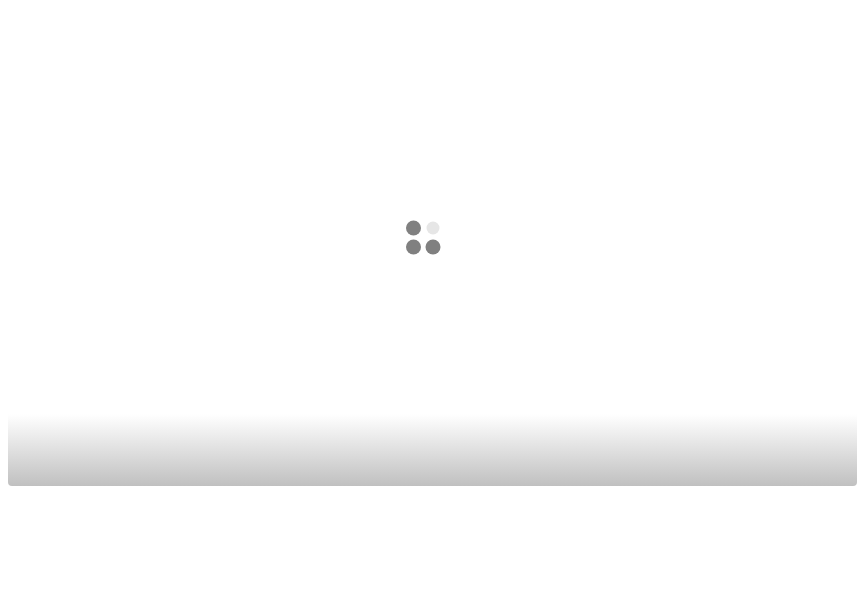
(async () => {
  const canvas = document.querySelector("canvas");
  canvas.width = 865;
  canvas.height = 599;
  const ctx = canvas.getContext("2d");
  ctx.miterLimit = 4;
  ctx.fontKerning = "normal";
  let gradient;

  ctx.fillStyle = "#ffffff";
  ctx.fillRect(0, 0, 865, 599);
  gradient = ctx.createLinearGradient(433, 486, 433, 8);
  gradient.addColorStop(0, "#c0c0c0");
  gradient.addColorStop(0.15, "#ffffff");
  ctx.fillStyle = gradient;
  ctx.beginPath();
  ctx.roundRect(8, 8, 849, 478, 4);
  ctx.fill();
  ctx.fillStyle = "#808080";
  ctx.beginPath();
  ctx.arc(413.5, 228, 7.5, 0, Math.PI * 2);
  ctx.fill();
  ctx.fillStyle = "#e6e6e6";
  ctx.beginPath();
  ctx.arc(433, 228, 6.5, 0, Math.PI * 2);
  ctx.fill();
  ctx.fillStyle = "#808080";
  ctx.beginPath();
  ctx.arc(433, 247, 7.5, 0, Math.PI * 2);
  ctx.fill();
  ctx.beginPath();
  ctx.arc(413.5, 247, 7.5, 0, Math.PI * 2);
  ctx.fill();
})();
